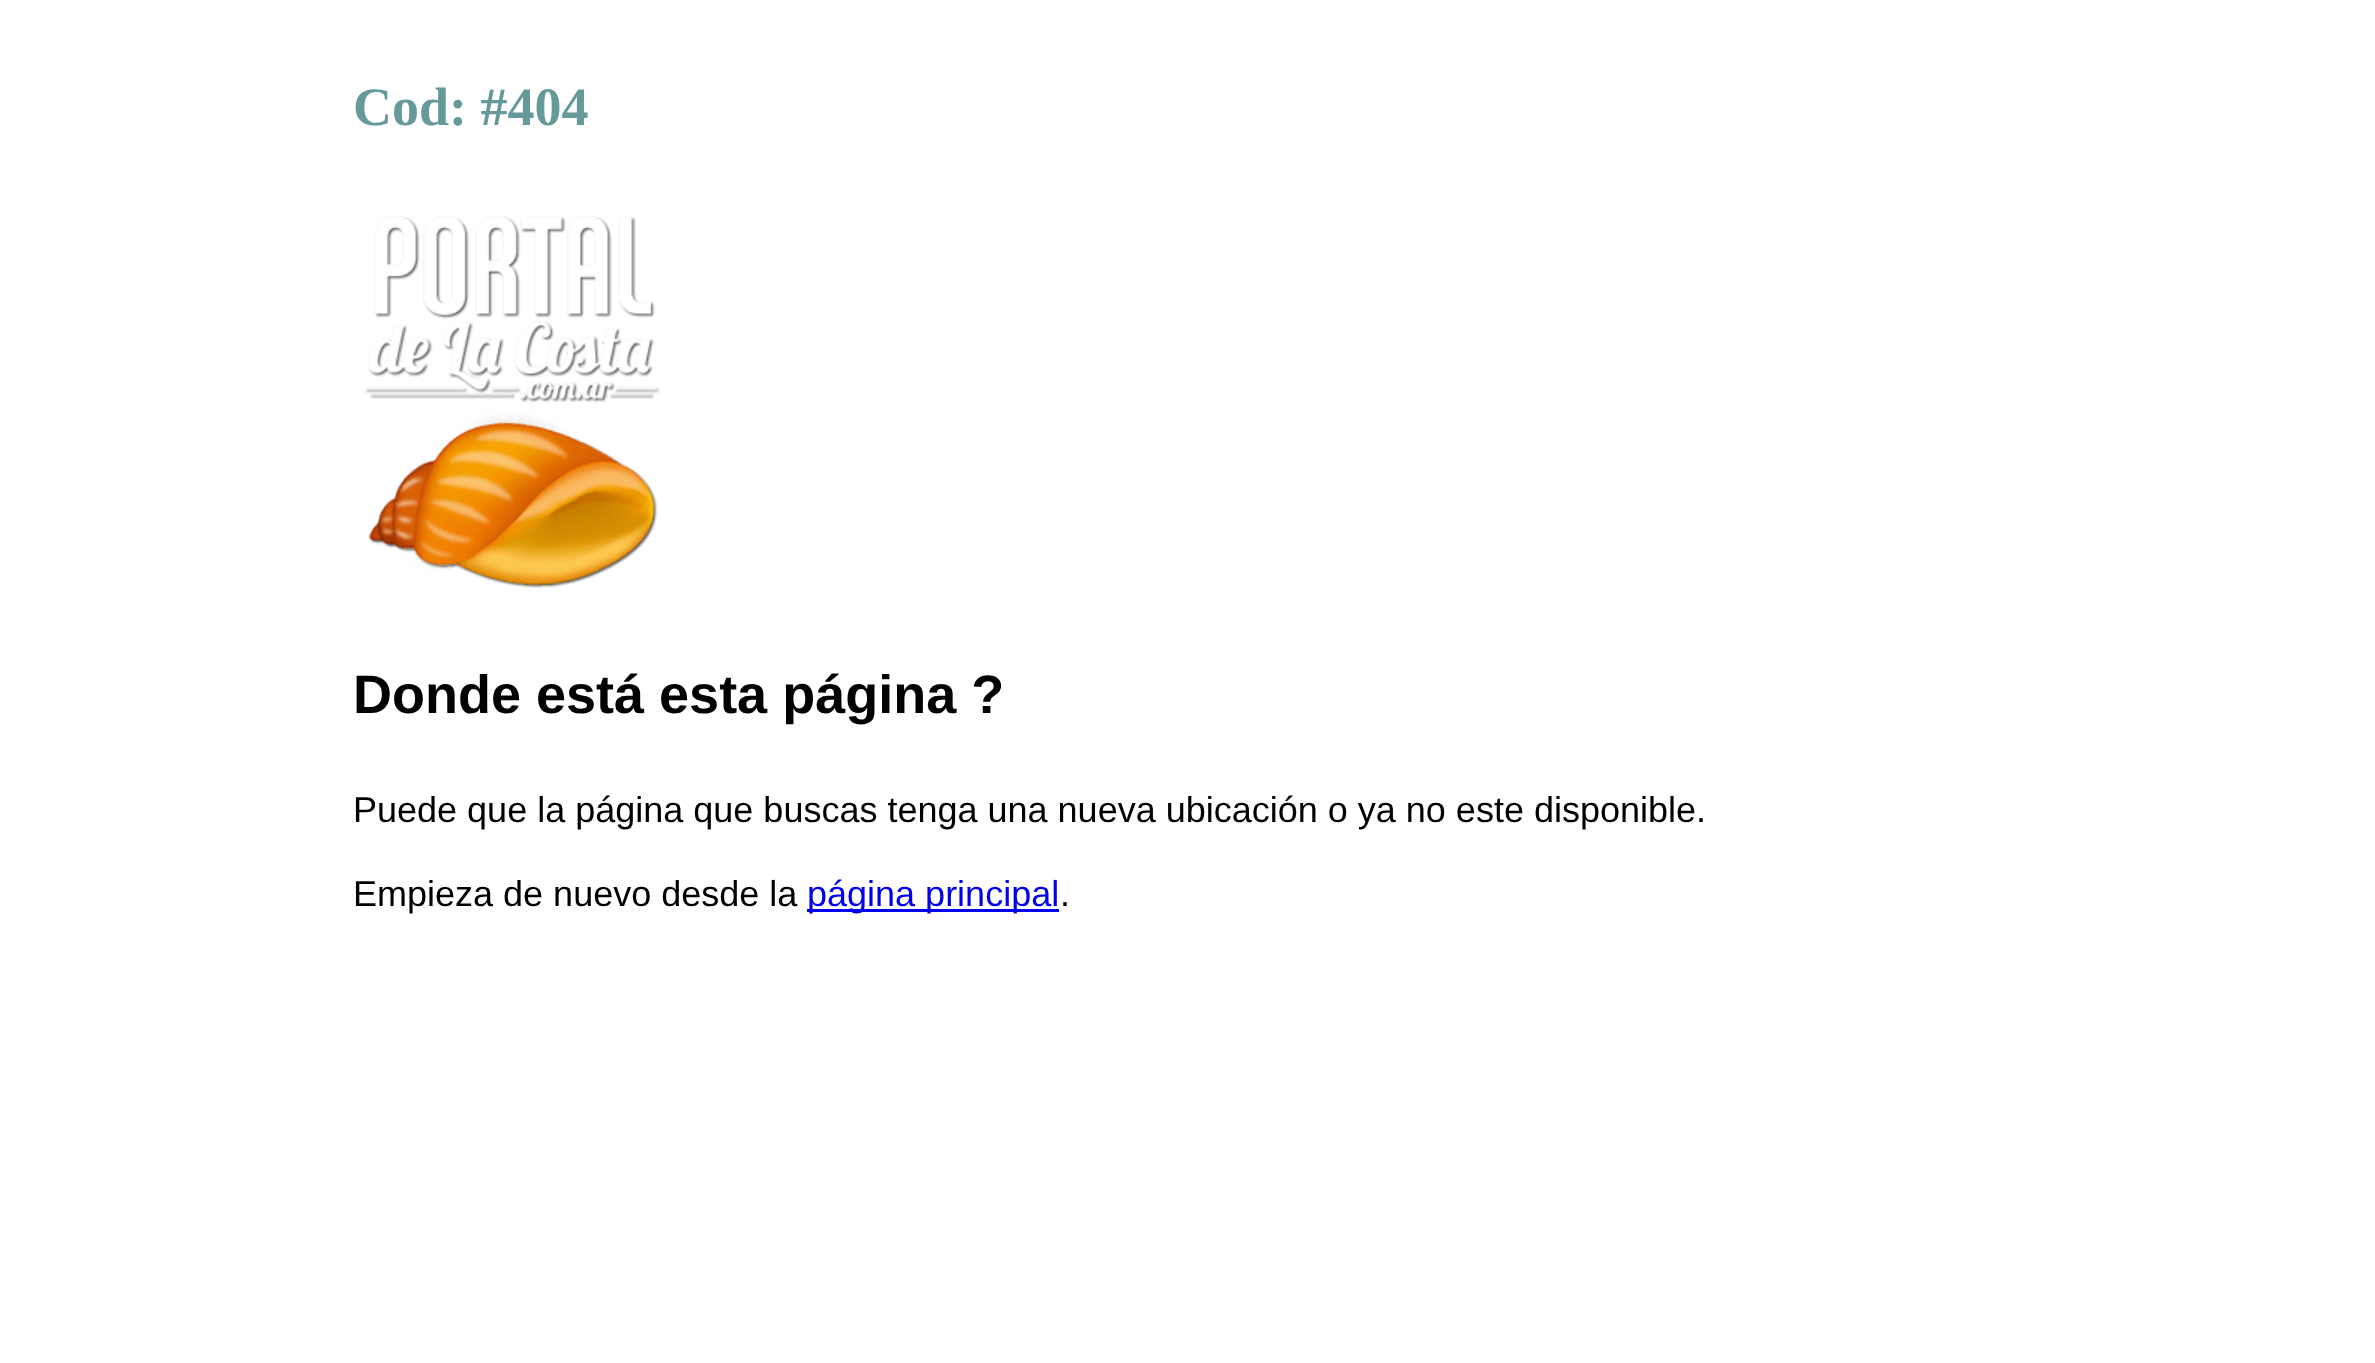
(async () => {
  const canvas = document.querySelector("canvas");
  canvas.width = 2375;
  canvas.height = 1363;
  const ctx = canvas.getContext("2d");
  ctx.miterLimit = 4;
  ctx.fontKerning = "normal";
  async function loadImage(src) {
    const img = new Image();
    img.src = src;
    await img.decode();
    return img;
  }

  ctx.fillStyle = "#ffffff";
  ctx.fillRect(0, 0, 2375, 1363);
  ctx.drawImage(await loadImage("img/1.png"), 365, 216, 295, 372);
  ctx.fillStyle = "#0000ee";
  ctx.fillRect(807, 909, 252, 3);
  ctx.font = "bold 54px Liberation Serif";
  ctx.fillStyle = "#669999";
  ctx.fillText("Cod: #404", 353, 125);
  ctx.font = "bold 54px Liberation Sans";
  ctx.fillStyle = "#000000";
  ctx.fillText("Donde está esta página ?", 353, 713);
  ctx.font = "36px Liberation Sans";
  ctx.fillText("Puede que la página que buscas tenga una nueva ubicación o ya no este disponible.", 353, 822);
  ctx.fillText("Empieza de nuevo desde la", 353, 906);
  ctx.fillStyle = "#0000ee";
  ctx.fillText("página principal", 807, 906);
  ctx.fillStyle = "#000000";
  ctx.fillText(".", 1060, 906);
})();
